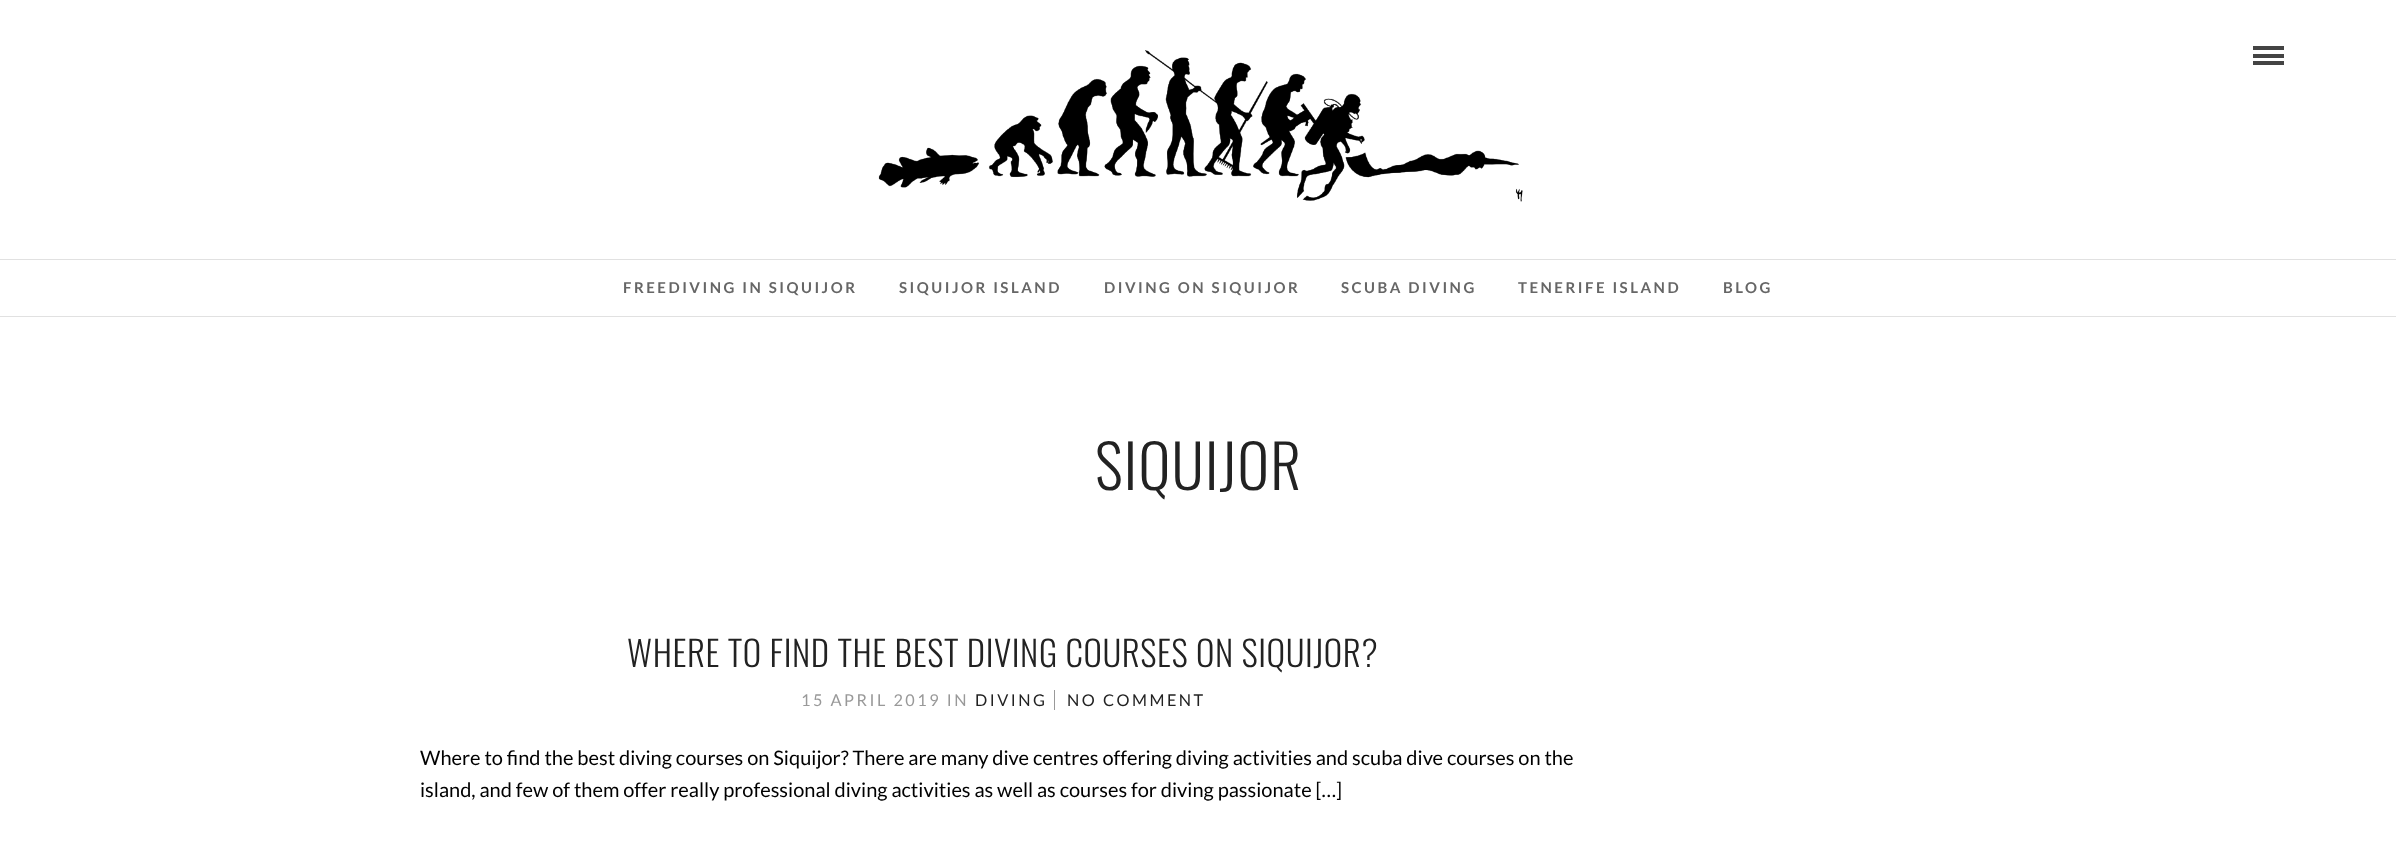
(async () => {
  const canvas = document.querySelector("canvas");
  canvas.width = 2396;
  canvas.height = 860;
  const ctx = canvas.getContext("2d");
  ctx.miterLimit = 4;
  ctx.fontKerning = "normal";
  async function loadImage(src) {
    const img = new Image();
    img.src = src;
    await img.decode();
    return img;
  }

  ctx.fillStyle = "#ffffff";
  ctx.fillRect(0, 0, 2396, 860);
  ctx.fillStyle = "#e1e1e1";
  ctx.fillRect(0, 316, 2396, 1);
  ctx.fillRect(0, 259, 2396, 1);
  ctx.drawImage(await loadImage("img/1.png"), 878, 50, 645, 152);
  for (const [x, y, w, h, color] of [
    [2253, 46, 31, 4, "#444444"],
    [2253, 54, 31, 4, "#444444"],
    [2253, 61, 31, 4, "#444444"],
    [1054, 690, 1, 20, "#999999"],
  ]) {
    ctx.fillStyle = color;
    ctx.fillRect(x, y, w, h);
  }
  ctx.letterSpacing = "2.5px";
  ctx.font = "bold 15px Lato";
  ctx.fillStyle = "#666666";
  for (const [text, x, y] of [
    ["FREEDIVING IN SIQUIJOR", 623, 293],
    ["SIQUIJOR ISLAND", 899, 293],
    ["DIVING ON SIQUIJOR", 1104, 293],
    ["SCUBA DIVING", 1341, 293],
    ["TENERIFE ISLAND", 1518, 293],
    ["BLOG", 1723, 293],
  ]) {
    ctx.fillText(text, x, y);
  }
  ctx.letterSpacing = "1.25px";
  ctx.font = "300 60px Oswald";
  ctx.fillStyle = "#222222";
  ctx.fillText("SIQUIJOR", 1095, 490);
  ctx.letterSpacing = "0.6px";
  ctx.font = "300 35px Oswald";
  ctx.fillText("WHERE TO FIND THE BEST DIVING COURSES ON SIQUIJOR?", 627, 667);
  ctx.letterSpacing = "2.5px";
  ctx.font = "16.25px Lato";
  ctx.fillStyle = "#999999";
  ctx.fillText("15 APRIL 2019 IN", 801, 706);
  ctx.fillStyle = "#222222";
  ctx.fillText("DIVING", 975, 706);
  ctx.fillText("NO COMMENT", 1067, 706);
  ctx.letterSpacing = "0px";
  ctx.font = "20px Lato";
  ctx.fillStyle = "#000000";
  ctx.fillText("Where to find the best diving courses on Siquijor? There are many dive centres offering diving activities and scuba dive courses on the", 420, 765);
  ctx.fillText("island, and few of them offer really professional diving activities as well as courses for diving passionate […]", 420, 797);
})();
